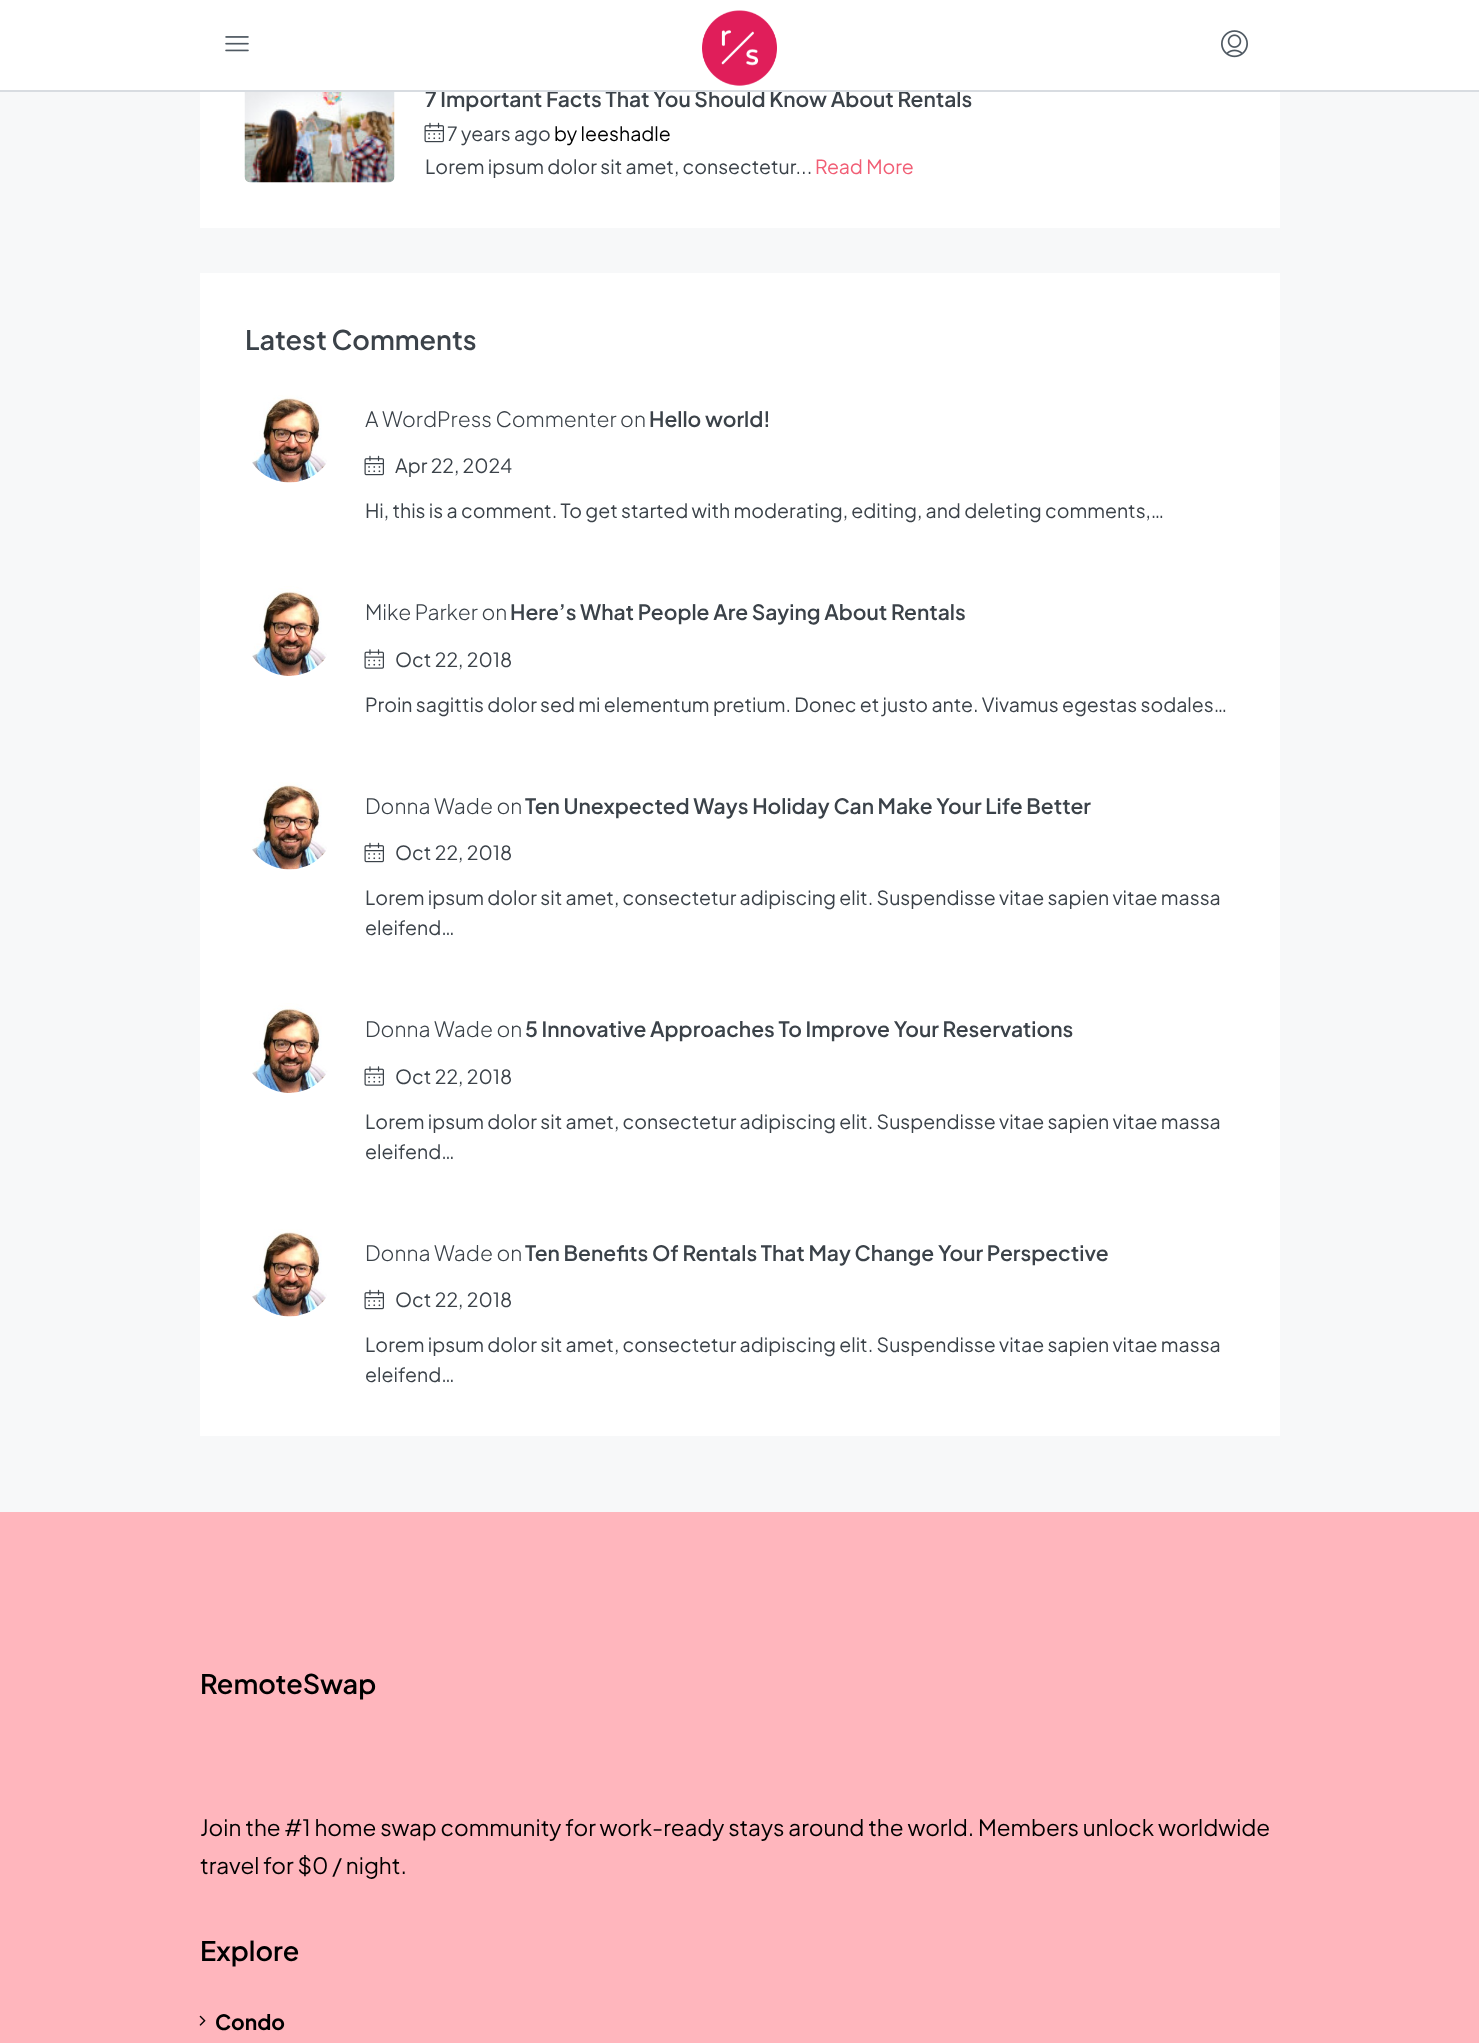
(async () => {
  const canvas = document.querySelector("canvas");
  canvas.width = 1479;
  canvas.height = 2043;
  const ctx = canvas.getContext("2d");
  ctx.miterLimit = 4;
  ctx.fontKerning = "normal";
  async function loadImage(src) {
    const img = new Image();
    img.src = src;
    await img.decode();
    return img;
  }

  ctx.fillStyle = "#f7f8f9";
  ctx.fillRect(0, 0, 1479, 2043);
  ctx.fillStyle = "#ffffff";
  ctx.fillRect(0, 0, 1479, 90);
  ctx.drawImage(await loadImage("img/1.png"), 225, 36, 24, 16);
  ctx.drawImage(await loadImage("img/2.png"), 702, 10, 75, 76);
  ctx.drawImage(await loadImage("img/3.png"), 1221, 30, 27, 28);
  ctx.fillRect(200, 92, 1080, 136);
  ctx.drawImage(await loadImage("img/4.png"), 244, 92, 151, 91);
  ctx.drawImage(await loadImage("img/5.png"), 424, 122, 20, 21);
  ctx.fillRect(200, 273, 1080, 1163);
  ctx.drawImage(await loadImage("img/6.png"), 252, 395, 75, 88);
  ctx.drawImage(await loadImage("img/5.png"), 364, 455, 20, 21);
  ctx.drawImage(await loadImage("img/7.png"), 252, 586, 75, 90);
  ctx.drawImage(await loadImage("img/8.png"), 364, 649, 20, 20);
  ctx.drawImage(await loadImage("img/6.png"), 252, 782, 75, 88);
  ctx.drawImage(await loadImage("img/5.png"), 364, 842, 20, 21);
  ctx.drawImage(await loadImage("img/9.png"), 252, 1003, 76, 90);
  ctx.drawImage(await loadImage("img/8.png"), 364, 1066, 20, 20);
  ctx.drawImage(await loadImage("img/6.png"), 252, 1229, 75, 88);
  ctx.drawImage(await loadImage("img/5.png"), 364, 1289, 20, 21);
  ctx.fillStyle = "#ffb6bd";
  ctx.fillRect(0, 1512, 1479, 531);
  ctx.drawImage(await loadImage("img/10.png"), 199, 2015, 7, 11);
  ctx.font = "600 21px Plus Jakarta Sans";
  ctx.fillStyle = "#3b4249";
  ctx.fillText("7 Important Facts That You Should Know About Rentals", 425, 107);
  ctx.fillStyle = "#d8dce1";
  ctx.fillRect(0, 90, 1479, 2);
  ctx.font = "19.5px Plus Jakarta Sans";
  ctx.fillStyle = "#3b4249";
  ctx.fillText("7 years ago", 447, 141);
  ctx.fillStyle = "#000000";
  ctx.fillText("by leeshadle", 554, 141);
  ctx.fillStyle = "#3b4249";
  ctx.fillText("Lorem ipsum dolor sit amet, consectetur...", 425, 174);
  ctx.fillStyle = "#f15e75";
  ctx.fillText("Read More", 815, 174);
  ctx.font = "600 27px Plus Jakarta Sans";
  ctx.fillStyle = "#3b4249";
  ctx.fillText("Latest Comments", 245, 350);
  ctx.font = "300 21px Plus Jakarta Sans";
  ctx.fillText("A WordPress Commenter on", 365, 427);
  ctx.font = "600 21px Plus Jakarta Sans";
  ctx.fillText("Hello world!", 649, 427);
  ctx.font = "19.5px Plus Jakarta Sans";
  ctx.fillText("Apr 22, 2024", 395, 473);
  ctx.fillText("Hi, this is a comment. To get started with moderating, editing, and deleting comments,…", 365, 518);
  ctx.font = "300 21px Plus Jakarta Sans";
  ctx.fillText("Mike Parker on", 365, 620);
  ctx.font = "600 21px Plus Jakarta Sans";
  ctx.fillText("Here’s What People Are Saying About Rentals", 510, 620);
  ctx.font = "19.5px Plus Jakarta Sans";
  ctx.fillText("Oct 22, 2018", 395, 667);
  ctx.fillText("Proin sagittis dolor sed mi elementum pretium. Donec et justo ante. Vivamus egestas sodales…", 365, 712);
  ctx.font = "300 21px Plus Jakarta Sans";
  ctx.fillText("Donna Wade on", 365, 814);
  ctx.font = "600 21px Plus Jakarta Sans";
  ctx.fillText("Ten Unexpected Ways Holiday Can Make Your Life Better", 525, 814);
  ctx.font = "19.5px Plus Jakarta Sans";
  for (const [text, x, y] of [
    ["Oct 22, 2018", 395, 860],
    ["Lorem ipsum dolor sit amet, consectetur adipiscing elit. Suspendisse vitae sapien vitae massa", 365, 905],
    ["eleifend…", 365, 935],
  ]) {
    ctx.fillText(text, x, y);
  }
  ctx.font = "300 21px Plus Jakarta Sans";
  ctx.fillText("Donna Wade on", 365, 1037);
  ctx.font = "600 21px Plus Jakarta Sans";
  ctx.fillText("5 Innovative Approaches To Improve Your Reservations", 525, 1037);
  ctx.font = "19.5px Plus Jakarta Sans";
  for (const [text, x, y] of [
    ["Oct 22, 2018", 395, 1084],
    ["Lorem ipsum dolor sit amet, consectetur adipiscing elit. Suspendisse vitae sapien vitae massa", 365, 1129],
    ["eleifend…", 365, 1159],
  ]) {
    ctx.fillText(text, x, y);
  }
  ctx.font = "300 21px Plus Jakarta Sans";
  ctx.fillText("Donna Wade on", 365, 1261);
  ctx.font = "600 21px Plus Jakarta Sans";
  ctx.fillText("Ten Benefits Of Rentals That May Change Your Perspective", 525, 1261);
  ctx.font = "19.5px Plus Jakarta Sans";
  for (const [text, x, y] of [
    ["Oct 22, 2018", 395, 1307],
    ["Lorem ipsum dolor sit amet, consectetur adipiscing elit. Suspendisse vitae sapien vitae massa", 365, 1352],
    ["eleifend…", 365, 1382],
  ]) {
    ctx.fillText(text, x, y);
  }
  ctx.font = "600 27px Plus Jakarta Sans";
  ctx.fillStyle = "#000000";
  ctx.fillText("RemoteSwap", 200, 1694);
  ctx.font = "22.5px Plus Jakarta Sans";
  ctx.fillText("Join the #1 home swap community for work-ready stays around the world. Members unlock worldwide", 200, 1836);
  ctx.fillText("travel for $0 / night.", 200, 1874);
  ctx.font = "600 27px Plus Jakarta Sans";
  ctx.fillText("Explore", 200, 1961);
  ctx.font = "bold 21px Plus Jakarta Sans";
  ctx.fillText("Condo", 215, 2030);
})();
